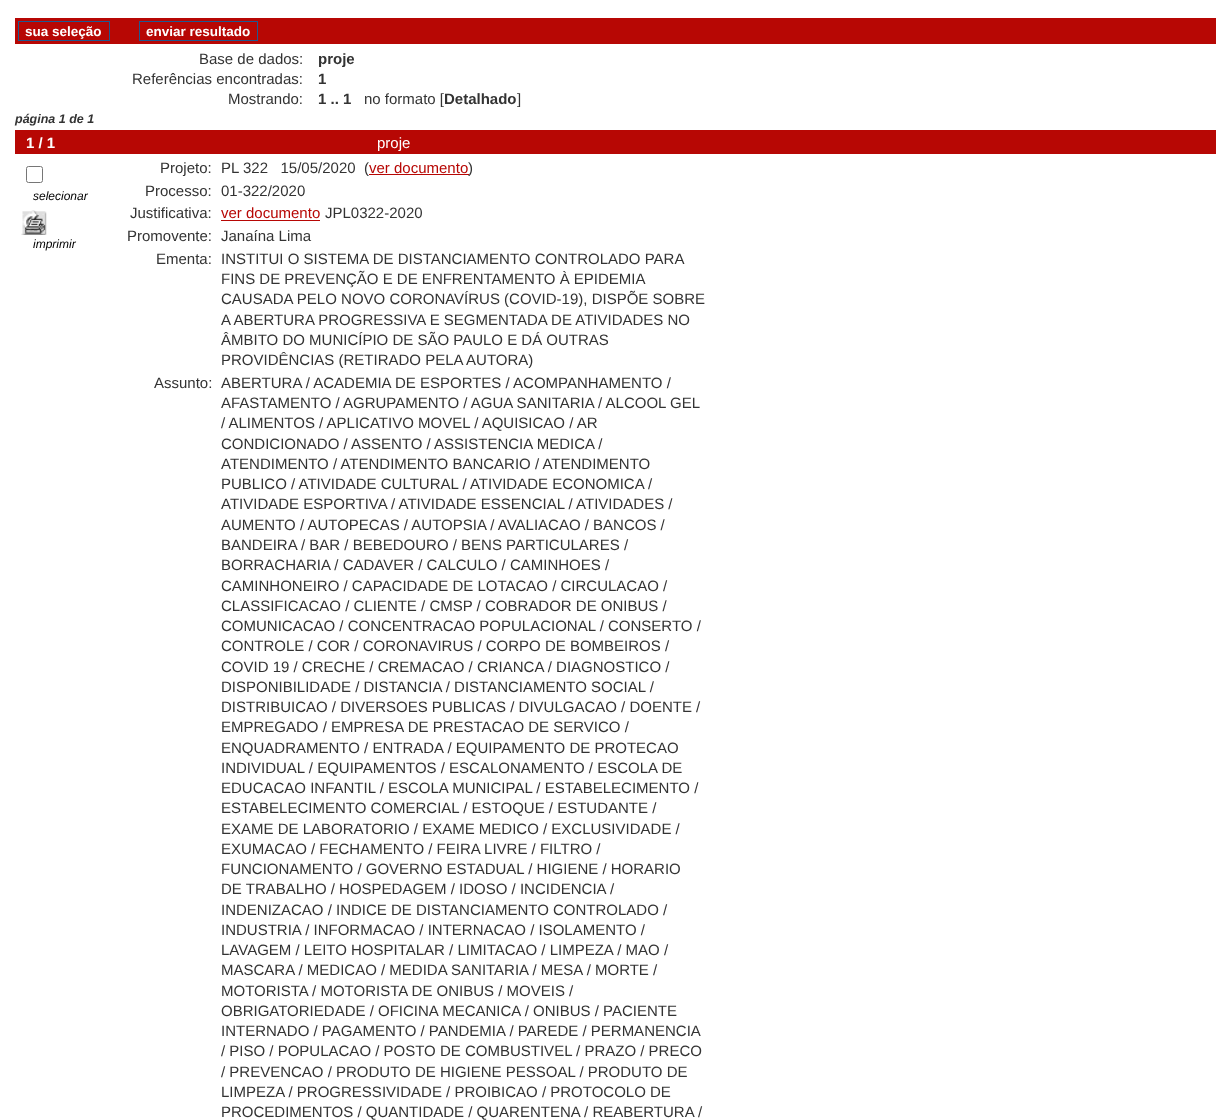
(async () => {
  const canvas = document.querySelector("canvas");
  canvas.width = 1231;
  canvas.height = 1120;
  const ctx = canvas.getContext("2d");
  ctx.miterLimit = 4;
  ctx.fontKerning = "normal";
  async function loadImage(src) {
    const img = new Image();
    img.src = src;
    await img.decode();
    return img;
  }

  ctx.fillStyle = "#ffffff";
  ctx.fillRect(0, 0, 1231, 1120);
  ctx.fillStyle = "#b70704";
  ctx.fillRect(15, 18, 1201, 26);
  ctx.strokeStyle = "#1e5991";
  ctx.strokeRect(18.5, 21.5, 91, 19);
  ctx.strokeRect(139.5, 21.5, 118, 19);
  ctx.fillRect(15, 130, 1201, 24);
  ctx.beginPath();
  ctx.roundRect(26.5, 166.5, 16, 16, 2);
  ctx.strokeStyle = "#767676";
  ctx.stroke();
  ctx.drawImage(await loadImage("img/1.png"), 21, 210, 26, 25);
  ctx.fillRect(369, 174, 100, 1);
  ctx.fillRect(221, 220, 99, 1);
  ctx.font = "bold 13.5px Liberation Sans";
  ctx.fillStyle = "#ffffff";
  ctx.fillText("sua seleção", 25, 36);
  ctx.fillText("enviar resultado", 146, 36);
  ctx.font = "15px Liberation Sans";
  ctx.fillStyle = "#333333";
  ctx.fillText("Base de dados:", 199, 64);
  ctx.font = "bold 15px Liberation Sans";
  ctx.fillText("proje", 318, 64);
  ctx.font = "15px Liberation Sans";
  ctx.fillText("Referências encontradas:", 132, 84);
  ctx.font = "bold 15px Liberation Sans";
  ctx.fillText("1", 318, 84);
  ctx.font = "15px Liberation Sans";
  ctx.fillText("Mostrando:", 228, 104);
  ctx.font = "bold 15px Liberation Sans";
  ctx.fillText("1 .. 1", 318, 104);
  ctx.font = "15px Liberation Sans";
  ctx.fillText("no formato [", 364, 104);
  ctx.font = "bold 15px Liberation Sans";
  ctx.fillText("Detalhado", 444, 104);
  ctx.font = "15px Liberation Sans";
  ctx.fillText("]", 517, 104);
  ctx.font = "italic bold 12.5px Liberation Sans";
  ctx.fillText("página 1 de 1", 15, 123);
  ctx.font = "bold 15px Liberation Sans";
  ctx.fillStyle = "#ffffff";
  ctx.fillText("1 / 1", 26, 148);
  ctx.font = "15px Liberation Sans";
  ctx.fillText("proje", 377, 148);
  ctx.font = "italic 12px Liberation Sans";
  ctx.fillStyle = "#000000";
  ctx.fillText("selecionar", 33, 200);
  ctx.fillText("imprimir", 33, 248);
  ctx.font = "15px Liberation Sans";
  ctx.fillStyle = "#333333";
  ctx.fillText("Projeto:", 160, 173);
  ctx.fillText("PL 322   15/05/2020  (", 221, 173);
  ctx.fillStyle = "#b70704";
  ctx.fillText("ver documento", 369, 173);
  ctx.fillStyle = "#333333";
  for (const [text, x, y] of [
    [")", 468, 173],
    ["Processo:", 145, 196],
    ["01-322/2020", 221, 196],
    ["Justificativa:", 130, 218],
  ]) {
    ctx.fillText(text, x, y);
  }
  ctx.fillStyle = "#b70704";
  ctx.fillText("ver documento", 221, 218);
  ctx.fillStyle = "#333333";
  for (const [text, x, y] of [
    ["JPL0322-2020", 325, 218],
    ["Promovente:", 127, 241],
    ["Janaína Lima", 221, 241],
    ["Ementa:", 156, 264],
    ["INSTITUI O SISTEMA DE DISTANCIAMENTO CONTROLADO PARA", 221, 264],
    ["FINS DE PREVENÇÃO E DE ENFRENTAMENTO À EPIDEMIA", 221, 284],
    ["CAUSADA PELO NOVO CORONAVÍRUS (COVID-19), DISPÕE SOBRE", 221, 304],
    ["A ABERTURA PROGRESSIVA E SEGMENTADA DE ATIVIDADES NO", 221, 325],
    ["ÂMBITO DO MUNICÍPIO DE SÃO PAULO E DÁ OUTRAS", 221, 345],
    ["PROVIDÊNCIAS (RETIRADO PELA AUTORA)", 221, 365],
    ["Assunto:", 154, 388],
    ["ABERTURA / ACADEMIA DE ESPORTES / ACOMPANHAMENTO /", 221, 388],
    ["AFASTAMENTO / AGRUPAMENTO / AGUA SANITARIA / ALCOOL GEL", 221, 408],
    ["/ ALIMENTOS / APLICATIVO MOVEL / AQUISICAO / AR", 221, 428],
    ["CONDICIONADO / ASSENTO / ASSISTENCIA MEDICA /", 221, 449],
    ["ATENDIMENTO / ATENDIMENTO BANCARIO / ATENDIMENTO", 221, 469],
    ["PUBLICO / ATIVIDADE CULTURAL / ATIVIDADE ECONOMICA /", 221, 489],
    ["ATIVIDADE ESPORTIVA / ATIVIDADE ESSENCIAL / ATIVIDADES /", 221, 509],
    ["AUMENTO / AUTOPECAS / AUTOPSIA / AVALIACAO / BANCOS /", 221, 530],
    ["BANDEIRA / BAR / BEBEDOURO / BENS PARTICULARES /", 221, 550],
    ["BORRACHARIA / CADAVER / CALCULO / CAMINHOES /", 221, 570],
    ["CAMINHONEIRO / CAPACIDADE DE LOTACAO / CIRCULACAO /", 221, 591],
    ["CLASSIFICACAO / CLIENTE / CMSP / COBRADOR DE ONIBUS /", 221, 611],
    ["COMUNICACAO / CONCENTRACAO POPULACIONAL / CONSERTO /", 221, 631],
    ["CONTROLE / COR / CORONAVIRUS / CORPO DE BOMBEIROS /", 221, 651],
    ["COVID 19 / CRECHE / CREMACAO / CRIANCA / DIAGNOSTICO /", 221, 672],
    ["DISPONIBILIDADE / DISTANCIA / DISTANCIAMENTO SOCIAL /", 221, 692],
    ["DISTRIBUICAO / DIVERSOES PUBLICAS / DIVULGACAO / DOENTE /", 221, 712],
    ["EMPREGADO / EMPRESA DE PRESTACAO DE SERVICO /", 221, 732],
    ["ENQUADRAMENTO / ENTRADA / EQUIPAMENTO DE PROTECAO", 221, 753],
    ["INDIVIDUAL / EQUIPAMENTOS / ESCALONAMENTO / ESCOLA DE", 221, 773],
    ["EDUCACAO INFANTIL / ESCOLA MUNICIPAL / ESTABELECIMENTO /", 221, 793],
    ["ESTABELECIMENTO COMERCIAL / ESTOQUE / ESTUDANTE /", 221, 813],
    ["EXAME DE LABORATORIO / EXAME MEDICO / EXCLUSIVIDADE /", 221, 834],
    ["EXUMACAO / FECHAMENTO / FEIRA LIVRE / FILTRO /", 221, 854],
    ["FUNCIONAMENTO / GOVERNO ESTADUAL / HIGIENE / HORARIO", 221, 874],
    ["DE TRABALHO / HOSPEDAGEM / IDOSO / INCIDENCIA /", 221, 894],
    ["INDENIZACAO / INDICE DE DISTANCIAMENTO CONTROLADO /", 221, 915],
    ["INDUSTRIA / INFORMACAO / INTERNACAO / ISOLAMENTO /", 221, 935],
    ["LAVAGEM / LEITO HOSPITALAR / LIMITACAO / LIMPEZA / MAO /", 221, 955],
    ["MASCARA / MEDICAO / MEDIDA SANITARIA / MESA / MORTE /", 221, 975],
    ["MOTORISTA / MOTORISTA DE ONIBUS / MOVEIS /", 221, 996],
    ["OBRIGATORIEDADE / OFICINA MECANICA / ONIBUS / PACIENTE", 221, 1016],
    ["INTERNADO / PAGAMENTO / PANDEMIA / PAREDE / PERMANENCIA", 221, 1036],
    ["/ PISO / POPULACAO / POSTO DE COMBUSTIVEL / PRAZO / PRECO", 221, 1056],
    ["/ PREVENCAO / PRODUTO DE HIGIENE PESSOAL / PRODUTO DE", 221, 1077],
    ["LIMPEZA / PROGRESSIVIDADE / PROIBICAO / PROTOCOLO DE", 221, 1097],
    ["PROCEDIMENTOS / QUANTIDADE / QUARENTENA / REABERTURA /", 221, 1117],
  ]) {
    ctx.fillText(text, x, y);
  }
})();
